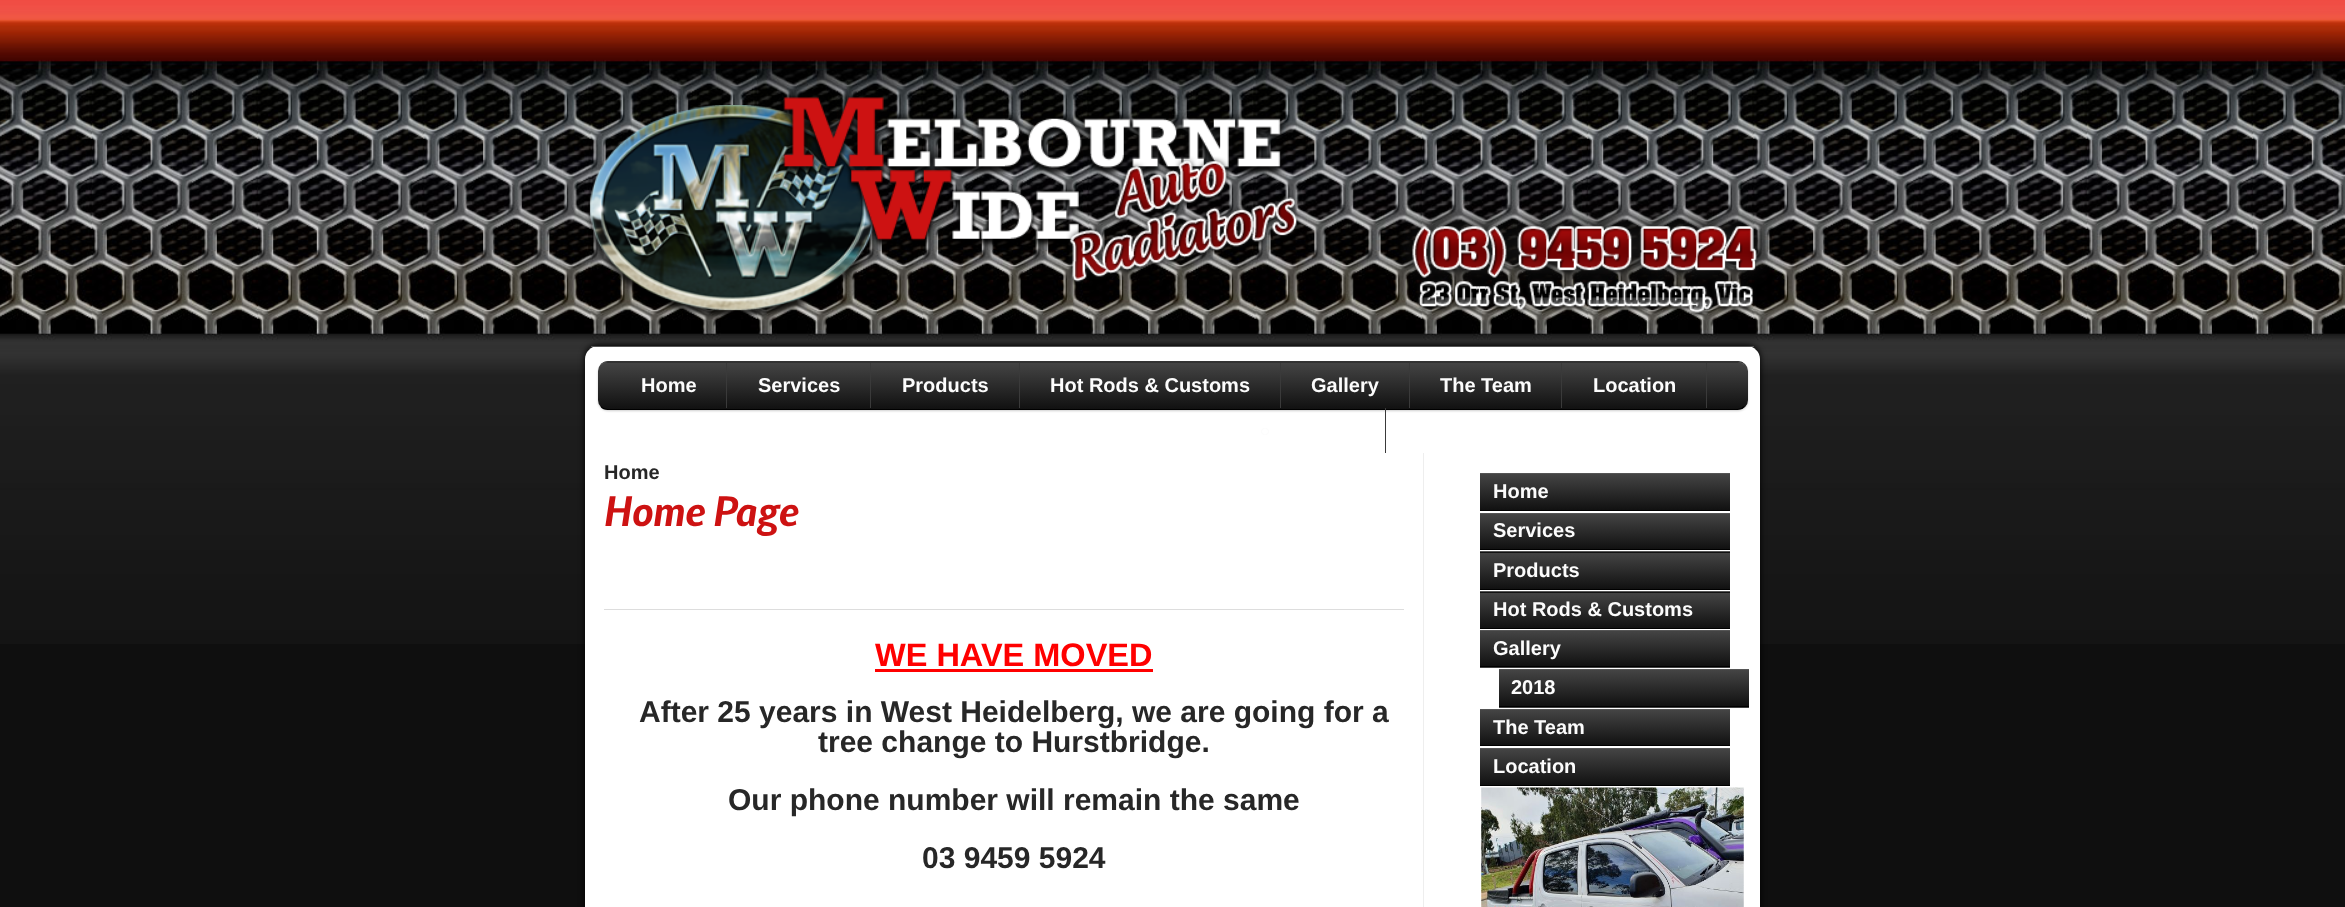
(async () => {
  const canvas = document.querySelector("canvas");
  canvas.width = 2345;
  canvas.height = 907;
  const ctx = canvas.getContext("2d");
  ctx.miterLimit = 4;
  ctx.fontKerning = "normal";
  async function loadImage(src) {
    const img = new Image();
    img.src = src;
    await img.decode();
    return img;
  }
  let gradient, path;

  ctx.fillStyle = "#0f0f0f";
  ctx.fillRect(0, 0, 2345, 907);
  ctx.drawImage(await loadImage("img/1.png"), 0, 0, 2345, 644);
  ctx.drawImage(await loadImage("img/2.png"), 585, 105, 292, 215);
  ctx.drawImage(await loadImage("img/3.png"), 775, 88, 526, 197);
  ctx.drawImage(await loadImage("img/4.png"), 1396, 209, 377, 109);
  ctx.fillStyle = "#000000";
  ctx.filter = "blur(3px)";
  ctx.beginPath();
  ctx.roundRect(585, 345, 1175, 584, 13);
  ctx.fill();
  ctx.filter = "none";
  ctx.fillStyle = "#ffffff";
  path = new Path2D("M598 346H1747C1754 346 1760 352 1760 359V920H585V359C585 352 591 346 598 346Z");
  ctx.fill(path);
  ctx.fillStyle = "#555555";
  ctx.fillRect(591, 346, 1163, 1);
  ctx.fillStyle = "rgba(10, 10, 10, 0.2)";
  ctx.filter = "blur(1px)";
  ctx.beginPath();
  ctx.roundRect(598, 363, 1150, 48, 10);
  ctx.fill();
  ctx.filter = "none";
  ctx.save();
  ctx.beginPath();
  ctx.roundRect(598, 361, 1150, 49, 10);
  ctx.clip();
  gradient = ctx.createLinearGradient(599, 316, 599, 363);
  gradient.addColorStop(0, "#444444");
  gradient.addColorStop(1, "#111111");
  ctx.fillStyle = gradient;
  ctx.fillRect(598, 361, 1150, 2);
  gradient = ctx.createLinearGradient(599, 363, 599, 409);
  gradient.addColorStop(0, "#444444");
  gradient.addColorStop(1, "#111111");
  ctx.fillStyle = gradient;
  ctx.fillRect(598, 363, 1150, 46);
  ctx.restore();
  path = new Path2D("M601 364.5C602.5 363 605 362 607.5 362H1737.5C1740 362 1742.5 363 1744 364.5");
  ctx.strokeStyle = "#555555";
  ctx.lineWidth = 1.2;
  ctx.stroke(path);
  path = new Path2D("M1744 406.5C1742.5 408.5 1740 409.5 1737.5 409.5H607.5C605 409.5 602.5 408.5 601 406.5");
  ctx.strokeStyle = "#000000";
  ctx.stroke(path);
  for (const [x, y, w, h, color] of [
    [726, 363, 1, 45, "#3a3a3a"],
    [870, 363, 1, 45, "#3a3a3a"],
    [1019, 363, 1, 45, "#3a3a3a"],
    [1280, 363, 1, 45, "#3a3a3a"],
    [1409, 363, 1, 45, "#3a3a3a"],
  ]) {
    ctx.fillStyle = color;
    ctx.fillRect(x, y, w, h);
  }
  ctx.beginPath();
  ctx.roundRect(1261.5, 428.5, 7, 6, 3);
  ctx.strokeStyle = "#fcfcfc";
  ctx.lineWidth = 1;
  ctx.stroke();
  for (const [x, y, w, h, color] of [
    [1385, 408, 1, 45, "#3a3a3a"],
    [1561, 363, 1, 45, "#3a3a3a"],
    [1706, 363, 1, 45, "#3a3a3a"],
    [1423, 453, 1, 454, "#eeeeee"],
    [604, 609, 800, 1, "#dddddd"],
    [875, 669, 278, 3, "#ff0000"],
  ]) {
    ctx.fillStyle = color;
    ctx.fillRect(x, y, w, h);
  }
  gradient = ctx.createLinearGradient(1480, 474, 1480, 510);
  gradient.addColorStop(0, "#444444");
  gradient.addColorStop(1, "#111111");
  ctx.fillStyle = gradient;
  ctx.fillRect(1480, 474, 250, 36);
  ctx.fillStyle = "#555555";
  ctx.fillRect(1480, 473, 250, 1);
  ctx.fillStyle = "#000000";
  ctx.fillRect(1480, 510, 250, 1);
  gradient = ctx.createLinearGradient(1480, 514, 1480, 549);
  gradient.addColorStop(0, "#444444");
  gradient.addColorStop(1, "#111111");
  ctx.fillStyle = gradient;
  ctx.fillRect(1480, 514, 250, 35);
  ctx.fillStyle = "#555555";
  ctx.fillRect(1480, 513, 250, 1);
  ctx.fillStyle = "#000000";
  ctx.fillRect(1480, 549, 250, 1);
  gradient = ctx.createLinearGradient(1480, 516, 1480, 553);
  gradient.addColorStop(0, "#444444");
  gradient.addColorStop(1, "#111111");
  ctx.fillStyle = gradient;
  ctx.fillRect(1480, 552, 250, 1);
  gradient = ctx.createLinearGradient(1480, 553, 1480, 589);
  gradient.addColorStop(0, "#444444");
  gradient.addColorStop(1, "#111111");
  ctx.fillStyle = gradient;
  ctx.fillRect(1480, 553, 250, 36);
  ctx.fillStyle = "#555555";
  ctx.fillRect(1480, 551, 250, 1);
  ctx.fillStyle = "#000000";
  ctx.fillRect(1480, 589, 250, 1);
  gradient = ctx.createLinearGradient(1480, 558, 1480, 593);
  gradient.addColorStop(0, "#444444");
  gradient.addColorStop(1, "#111111");
  ctx.fillStyle = gradient;
  ctx.fillRect(1480, 592, 250, 1);
  gradient = ctx.createLinearGradient(1480, 593, 1480, 628);
  gradient.addColorStop(0, "#444444");
  gradient.addColorStop(1, "#111111");
  ctx.fillStyle = gradient;
  ctx.fillRect(1480, 593, 250, 35);
  ctx.fillStyle = "#555555";
  ctx.fillRect(1480, 591, 250, 1);
  ctx.fillStyle = "#000000";
  ctx.fillRect(1480, 628, 250, 1);
  gradient = ctx.createLinearGradient(1480, 631, 1480, 666);
  gradient.addColorStop(0, "#444444");
  gradient.addColorStop(1, "#111111");
  ctx.fillStyle = gradient;
  ctx.fillRect(1480, 631, 250, 35);
  gradient = ctx.createLinearGradient(1480, 666, 1480, 701);
  gradient.addColorStop(0, "#444444");
  gradient.addColorStop(1, "#111111");
  ctx.fillStyle = gradient;
  ctx.fillRect(1480, 667, 250, 1);
  ctx.fillStyle = "#555555";
  ctx.fillRect(1480, 630, 250, 1);
  ctx.fillStyle = "#000000";
  ctx.fillRect(1480, 666, 250, 1);
  gradient = ctx.createLinearGradient(1499, 670, 1499, 706);
  gradient.addColorStop(0, "#444444");
  gradient.addColorStop(1, "#111111");
  ctx.fillStyle = gradient;
  ctx.fillRect(1499, 670, 250, 36);
  gradient = ctx.createLinearGradient(1499, 706, 1499, 743);
  gradient.addColorStop(0, "#444444");
  gradient.addColorStop(1, "#111111");
  ctx.fillStyle = gradient;
  ctx.fillRect(1499, 707, 250, 1);
  ctx.fillStyle = "#555555";
  ctx.fillRect(1499, 669, 250, 1);
  ctx.fillStyle = "#000000";
  ctx.fillRect(1499, 706, 250, 1);
  gradient = ctx.createLinearGradient(1480, 710, 1480, 745);
  gradient.addColorStop(0, "#444444");
  gradient.addColorStop(1, "#111111");
  ctx.fillStyle = gradient;
  ctx.fillRect(1480, 710, 250, 35);
  ctx.fillStyle = "#555555";
  ctx.fillRect(1480, 709, 250, 1);
  ctx.fillStyle = "#000000";
  ctx.fillRect(1480, 745, 250, 1);
  gradient = ctx.createLinearGradient(1480, 749, 1480, 785);
  gradient.addColorStop(0, "#444444");
  gradient.addColorStop(1, "#111111");
  ctx.fillStyle = gradient;
  ctx.fillRect(1480, 749, 250, 36);
  ctx.fillStyle = "#555555";
  ctx.fillRect(1480, 748, 250, 1);
  ctx.fillStyle = "#000000";
  ctx.fillRect(1480, 785, 250, 1);
  ctx.drawImage(await loadImage("img/5.png"), 1481, 787, 263, 120);
  ctx.font = "bold 20px Liberation Sans";
  ctx.fillStyle = "#fcfcfc";
  for (const [text, x, y] of [
    ["Home", 641, 392],
    ["Services", 758, 392],
    ["Products", 902, 392],
    ["Hot Rods & Customs", 1050, 392],
    ["Gallery", 1311, 392],
    ["The Team", 1440, 392],
    ["Location", 1593, 392],
  ]) {
    ctx.fillText(text, x, y);
  }
  ctx.fillStyle = "#272727";
  ctx.fillText("Home", 604, 479);
  ctx.font = "italic bold 38px Nobile";
  ctx.fillStyle = "#cd1212";
  ctx.fillText("Home Page", 604, 526);
  ctx.font = "bold 32.5px Liberation Sans";
  ctx.fillStyle = "#ff0000";
  ctx.fillText("WE HAVE MOVED", 875, 666);
  ctx.font = "bold 30px Liberation Sans";
  ctx.fillStyle = "#272727";
  for (const [text, x, y] of [
    ["After 25 years in West Heidelberg, we are going for a", 639, 722],
    ["tree change to Hurstbridge.", 818, 752],
    ["Our phone number will remain the same", 728, 810],
    ["03 9459 5924", 922, 868],
  ]) {
    ctx.fillText(text, x, y);
  }
  ctx.font = "bold 20px Liberation Sans";
  ctx.fillStyle = "#fcfcfc";
  for (const [text, x, y] of [
    ["Home", 1493, 498],
    ["Services", 1493, 537],
    ["Products", 1493, 577],
    ["Hot Rods & Customs", 1493, 616],
    ["Gallery", 1493, 655],
    ["2018", 1511, 694],
    ["The Team", 1493, 734],
    ["Location", 1493, 773],
  ]) {
    ctx.fillText(text, x, y);
  }
})();
